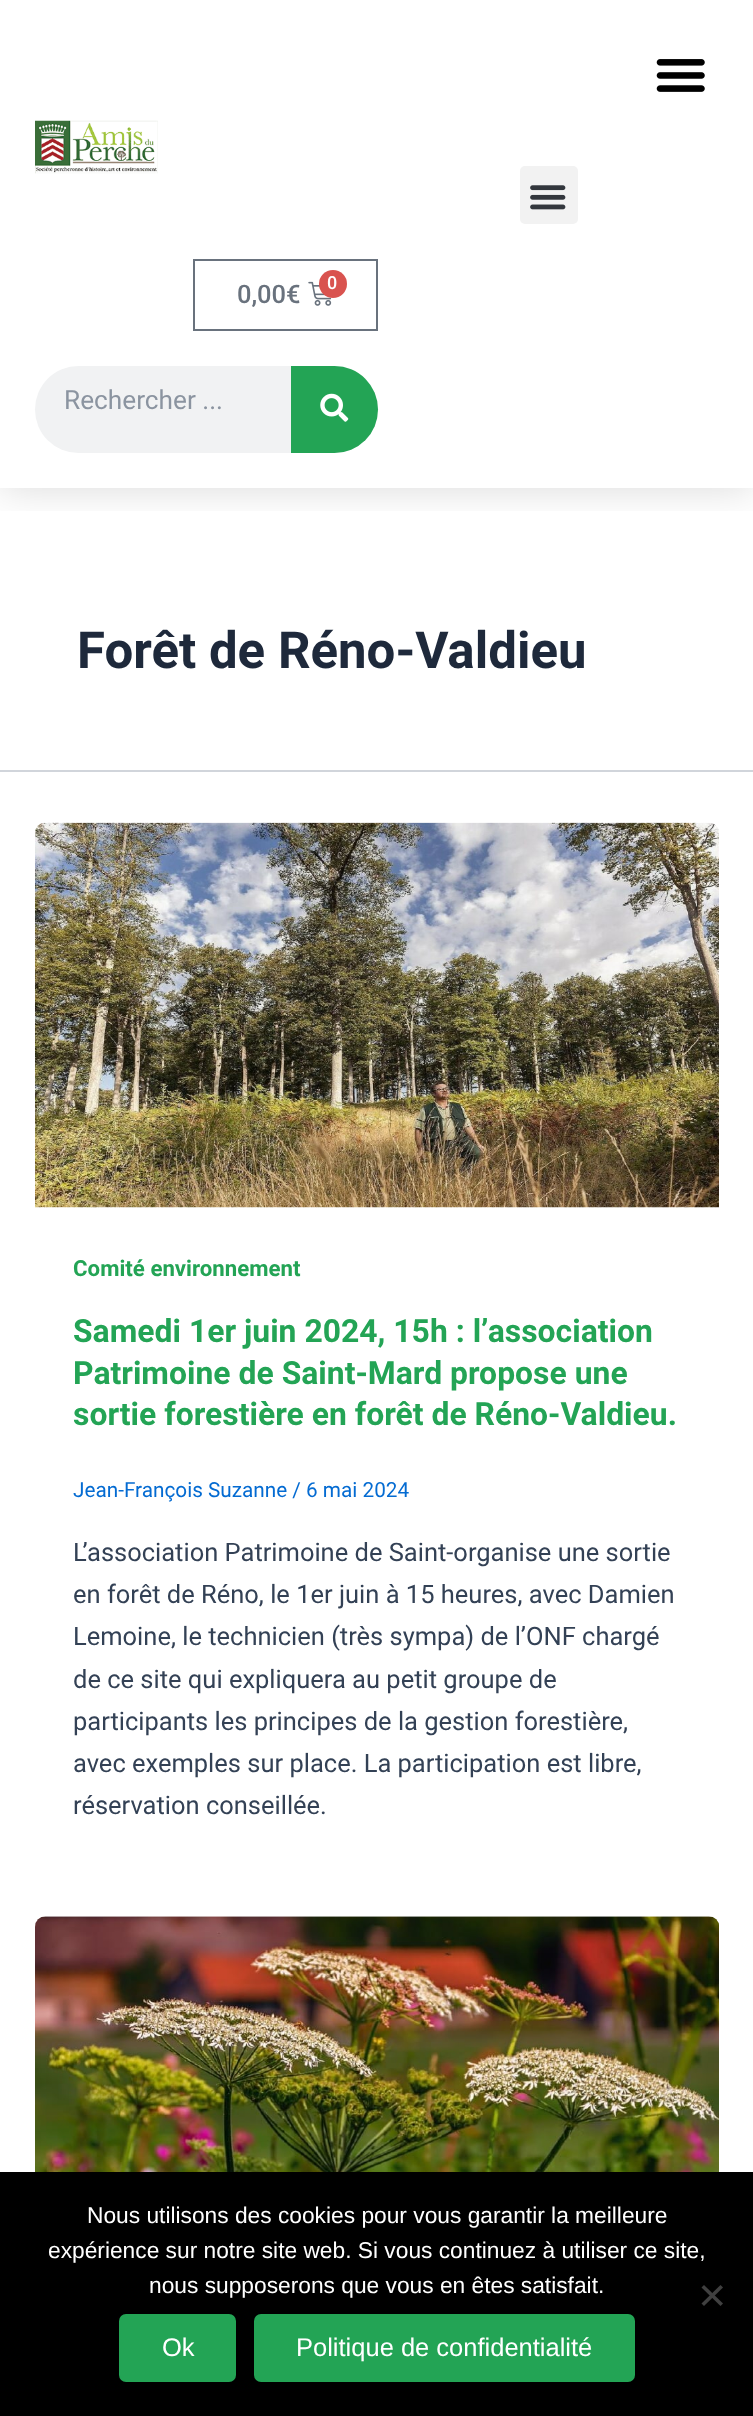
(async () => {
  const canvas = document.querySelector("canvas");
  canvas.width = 753;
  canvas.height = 2416;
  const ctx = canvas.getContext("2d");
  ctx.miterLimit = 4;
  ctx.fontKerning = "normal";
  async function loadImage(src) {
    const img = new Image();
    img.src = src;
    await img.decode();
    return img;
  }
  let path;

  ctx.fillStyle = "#ffffff";
  ctx.fillRect(0, 0, 753, 2416);
  ctx.save();
  ctx.beginPath();
  ctx.rect(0, 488, 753, 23);
  ctx.clip();
  ctx.fillStyle = "rgba(0, 0, 0, 0.15)";
  ctx.filter = "blur(21px)";
  ctx.beginPath();
  ctx.rect(0, 0, 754, 488);
  ctx.fill();
  ctx.filter = "none";
  ctx.restore();
  ctx.drawImage(await loadImage("img/1.png"), 35, 120, 123, 54);
  ctx.drawImage(await loadImage("img/2.png"), 656, 59, 49, 33);
  ctx.fillStyle = "#f2f2f2";
  ctx.beginPath();
  ctx.roundRect(520, 166, 58, 58, 5);
  ctx.fill();
  ctx.drawImage(await loadImage("img/3.png"), 530, 185, 36, 25);
  ctx.strokeStyle = "#69727d";
  ctx.lineWidth = 2;
  ctx.strokeRect(194, 260, 183, 70);
  ctx.drawImage(await loadImage("img/4.png"), 308, 281, 24, 25);
  ctx.fillStyle = "#d9534f";
  ctx.beginPath();
  ctx.arc(333, 284, 14, 0, Math.PI * 2);
  ctx.fill();
  ctx.fillStyle = "#f1f2f3";
  ctx.beginPath();
  ctx.roundRect(35, 366, 343, 87, 43.5);
  ctx.fill();
  ctx.fillStyle = "#23a455";
  ctx.beginPath();
  ctx.roundRect(291, 366, 87, 87, [0, 43.5, 43.5, 0]);
  ctx.fill();
  ctx.drawImage(await loadImage("img/5.png"), 320, 393, 29, 29);
  ctx.fillStyle = "#d1d5db";
  ctx.fillRect(0, 770, 753, 2);
  ctx.drawImage(await loadImage("img/6.png"), 35, 822, 684, 386);
  ctx.drawImage(await loadImage("img/7.png"), 35, 1916, 684, 256);
  ctx.fillStyle = "#000000";
  ctx.fillRect(0, 2172, 753, 244);
  ctx.fillStyle = "#404040";
  path = new Path2D("M720.5 2285L723 2287.5L704 2306L701.5 2303.5Z");
  ctx.fill(path);
  path = new Path2D("M701.5 2287.5L704 2285L723 2303.5L720.5 2306Z");
  ctx.fill(path);
  ctx.fillStyle = "#23a455";
  ctx.beginPath();
  ctx.roundRect(119, 2314, 117, 68, 7);
  ctx.fill();
  ctx.beginPath();
  ctx.roundRect(254, 2314, 381, 68, 7);
  ctx.fill();
  ctx.font = "500 25.5px Roboto";
  ctx.fillStyle = "#69727d";
  ctx.fillText("0,00€", 237, 303);
  ctx.font = "500 18px Roboto";
  ctx.fillStyle = "#ffffff";
  ctx.fillText("0", 327, 289);
  ctx.font = "26.25px Roboto";
  ctx.fillStyle = "#8b94a0";
  ctx.fillText("Rechercher ...", 64, 409);
  ctx.font = "bold 51px Roboto";
  ctx.fillStyle = "#1e293b";
  ctx.fillText("Forêt de Réno-Valdieu", 77, 668);
  ctx.font = "bold 22.25px Roboto";
  ctx.fillStyle = "#23a455";
  ctx.fillText("Comité environnement", 73, 1276);
  ctx.font = "bold 31.9px Roboto";
  for (const [text, x, y] of [
    ["Samedi 1er juin 2024, 15h : l’association", 73, 1342],
    ["Patrimoine de Saint-Mard propose une", 73, 1384],
    ["sortie forestière en forêt de Réno-Valdieu.", 73, 1425],
  ]) {
    ctx.fillText(text, x, y);
  }
  ctx.font = "20.75px Roboto";
  ctx.fillStyle = "#046bd2";
  ctx.fillText("Jean-François Suzanne / 6 mai 2024", 73, 1497);
  ctx.font = "25.5px Roboto";
  ctx.fillStyle = "#334155";
  for (const [text, x, y] of [
    ["L’association Patrimoine de Saint-organise une sortie", 73, 1561],
    ["en forêt de Réno, le 1er juin à 15 heures, avec Damien", 73, 1603],
    ["Lemoine, le technicien (très sympa) de l’ONF chargé", 73, 1645],
    ["de ce site qui expliquera au petit groupe de", 73, 1688],
    ["participants les principes de la gestion forestière,", 73, 1730],
    ["avec exemples sur place. La participation est libre,", 73, 1772],
    ["réservation conseillée.", 73, 1814],
  ]) {
    ctx.fillText(text, x, y);
  }
  ctx.font = "22.75px Liberation Sans";
  ctx.fillStyle = "#ffffff";
  for (const [text, x, y] of [
    ["Nous utilisons des cookies pour vous garantir la meilleure", 87, 2223],
    ["expérience sur notre site web. Si vous continuez à utiliser ce site,", 48, 2258],
    ["nous supposerons que vous en êtes satisfait.", 149, 2293],
  ]) {
    ctx.fillText(text, x, y);
  }
  ctx.font = "25.5px Liberation Sans";
  ctx.fillText("Ok", 162, 2356);
  ctx.fillText("Politique de confidentialité", 296, 2356);
})();
